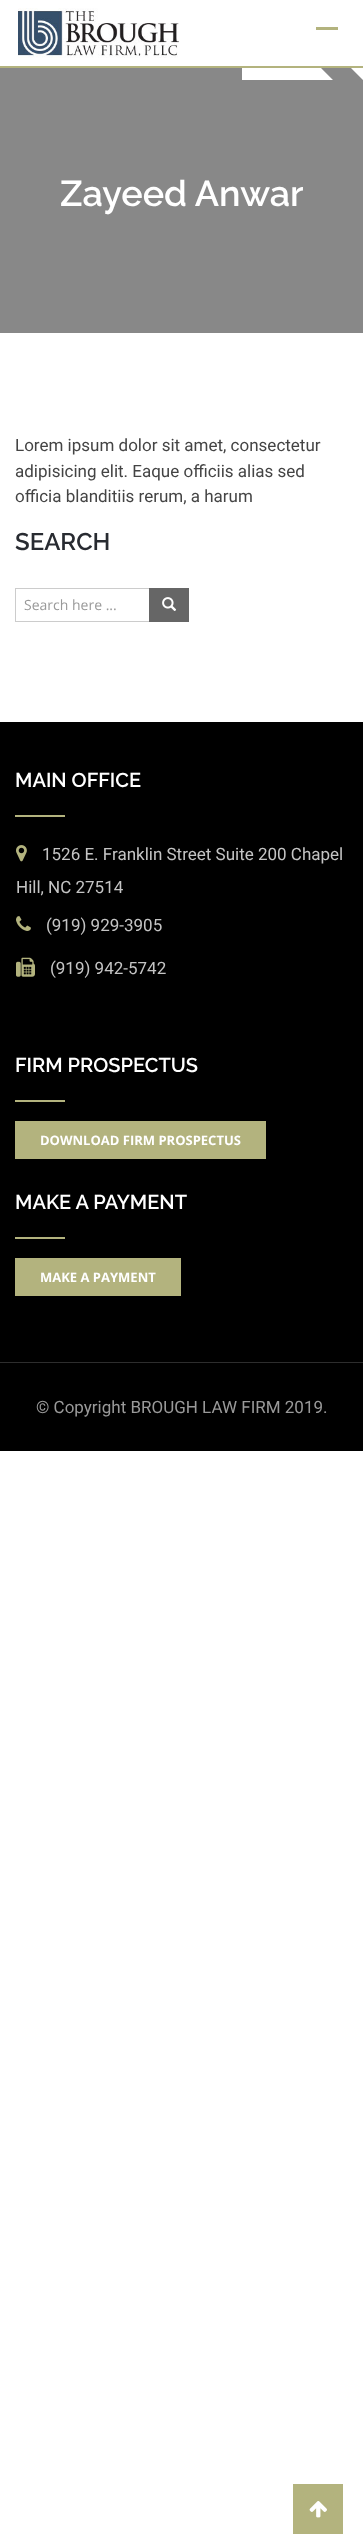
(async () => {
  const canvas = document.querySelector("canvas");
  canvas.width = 363;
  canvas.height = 2539;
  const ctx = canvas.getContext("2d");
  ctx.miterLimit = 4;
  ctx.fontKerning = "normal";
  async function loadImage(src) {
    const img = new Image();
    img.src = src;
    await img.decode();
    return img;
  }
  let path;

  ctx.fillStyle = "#ffffff";
  ctx.fillRect(0, 0, 363, 2539);
  ctx.fillStyle = "#b3b37e";
  ctx.fillRect(0, 66, 363, 2);
  ctx.drawImage(await loadImage("img/1.png"), 18, 8, 161, 50);
  ctx.fillRect(316, 27, 22, 3);
  ctx.save();
  ctx.beginPath();
  ctx.rect(0, 68, 363, 265);
  ctx.clip();
  ctx.fillStyle = "#888888";
  path = new Path2D("M242-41H0V443H363V80ZM242 80V-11L333 80Z");
  ctx.fill(path);
  ctx.restore();
  ctx.strokeStyle = "#cccccc";
  ctx.strokeRect(15.5, 588.5, 148, 33);
  ctx.fillStyle = "#666666";
  ctx.fillRect(149, 588, 40, 34);
  ctx.drawImage(await loadImage("img/2.png"), 162, 597, 15, 14);
  ctx.fillStyle = "#000000";
  ctx.fillRect(0, 722, 363, 640);
  ctx.fillStyle = "#b3b37e";
  ctx.fillRect(15, 815, 50, 2);
  ctx.drawImage(await loadImage("img/3.png"), 16, 845, 11, 17);
  ctx.drawImage(await loadImage("img/4.png"), 16, 916, 15, 15);
  ctx.drawImage(await loadImage("img/5.png"), 16, 957, 19, 20);
  for (const [x, y, w, h, color] of [
    [15, 1100, 50, 2, "#b3b37e"],
    [15, 1121, 251, 38, "#b3b37e"],
    [15, 1237, 50, 2, "#b3b37e"],
    [15, 1258, 166, 38, "#b3b37e"],
    [0, 1363, 363, 88, "#000000"],
    [0, 1362, 363, 1, "#2d2d2d"],
    [293, 2484, 50, 50, "#b3b37e"],
  ]) {
    ctx.fillStyle = color;
    ctx.fillRect(x, y, w, h);
  }
  ctx.drawImage(await loadImage("img/6.png"), 309, 2501, 18, 17);
  ctx.font = "600 36px Raleway";
  ctx.fillStyle = "#ffffff";
  ctx.fillText("Zayeed Anwar", 60, 206);
  ctx.font = "17px Roboto";
  ctx.fillStyle = "#444444";
  for (const [text, x, y] of [
    ["Lorem ipsum dolor sit amet, consectetur", 15, 451],
    ["adipisicing elit. Eaque officiis alias sed", 15, 477],
    ["officia blanditiis rerum, a harum", 15, 502],
  ]) {
    ctx.fillText(text, x, y);
  }
  ctx.font = "600 24px Raleway";
  ctx.fillStyle = "#282b31";
  ctx.fillText("SEARCH", 15, 550);
  ctx.font = "14px Open Sans";
  ctx.fillStyle = "#999999";
  ctx.fillText("Search here ...", 24, 610);
  ctx.font = "600 20px Raleway";
  ctx.fillStyle = "#ffffff";
  ctx.fillText("MAIN OFFICE", 15, 787);
  ctx.font = "17px Roboto";
  ctx.fillStyle = "#c4c4c4";
  for (const [text, x, y] of [
    ["1526 E. Franklin Street Suite 200 Chapel", 42, 860],
    ["Hill, NC 27514", 16, 893],
    ["(919) 929-3905", 46, 931],
    ["(919) 942-5742", 50, 974],
  ]) {
    ctx.fillText(text, x, y);
  }
  ctx.font = "600 20px Raleway";
  ctx.fillStyle = "#ffffff";
  ctx.fillText("FIRM PROSPECTUS", 15, 1072);
  ctx.font = "bold 13px Open Sans";
  ctx.fillText("DOWNLOAD FIRM PROSPECTUS", 40, 1145);
  ctx.font = "600 20px Raleway";
  ctx.fillText("MAKE A PAYMENT", 15, 1209);
  ctx.font = "bold 13px Open Sans";
  ctx.fillText("MAKE A PAYMENT", 40, 1282);
  ctx.font = "17px Roboto";
  ctx.fillStyle = "#999999";
  ctx.fillText("© Copyright BROUGH LAW FIRM 2019.", 36, 1413);
})();
